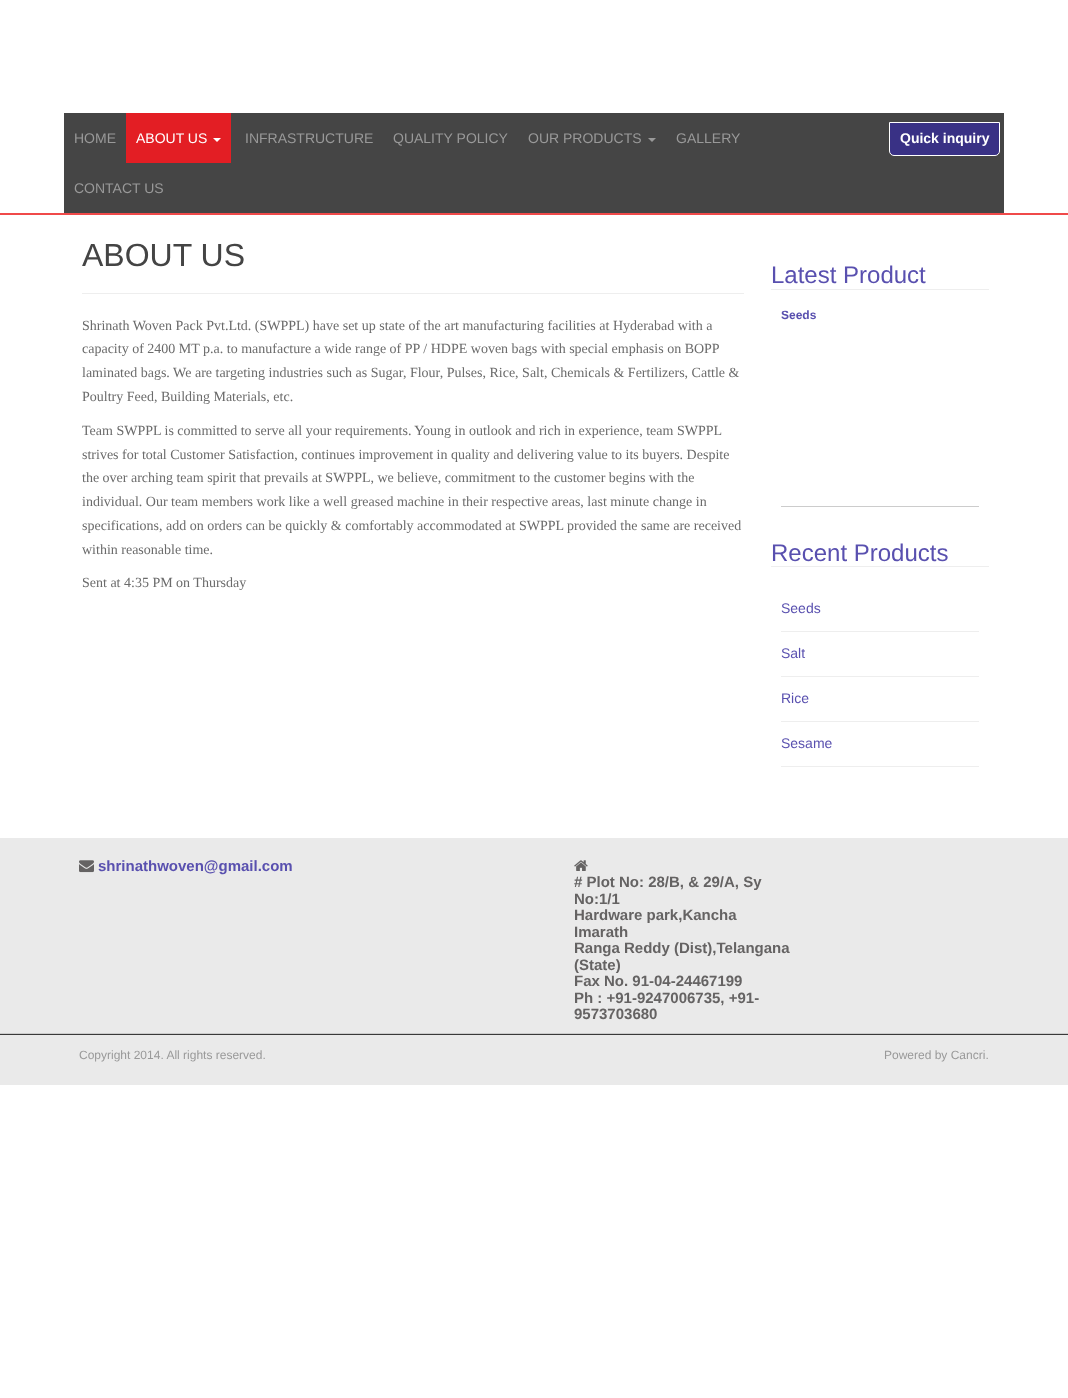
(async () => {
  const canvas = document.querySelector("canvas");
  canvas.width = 1068;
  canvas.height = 1398;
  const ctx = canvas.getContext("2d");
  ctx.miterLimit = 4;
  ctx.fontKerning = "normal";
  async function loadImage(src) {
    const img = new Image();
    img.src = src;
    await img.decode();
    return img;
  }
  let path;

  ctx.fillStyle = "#ffffff";
  ctx.fillRect(0, 0, 1068, 1398);
  for (const [x, y, w, h, color] of [
    [0, 213, 1068, 2, "#f04a4a"],
    [64, 113, 940, 100, "#454545"],
    [126, 113, 105, 50, "#e31e24"],
  ]) {
    ctx.fillStyle = color;
    ctx.fillRect(x, y, w, h);
  }
  ctx.fillStyle = "#ffffff";
  path = new Path2D("M213 138H221L217 142Z");
  ctx.fill(path);
  ctx.fillStyle = "#999999";
  path = new Path2D("M648 138H656L652 142Z");
  ctx.fill(path);
  ctx.fillStyle = "#393185";
  ctx.beginPath();
  ctx.roundRect(889.5, 122.5, 110, 33, [0, 0, 4.5, 4.5]);
  ctx.fill();
  ctx.strokeStyle = "#ffffff";
  ctx.stroke();
  for (const [x, y, w, h, color] of [
    [82, 293, 662, 1, "#eeeeee"],
    [771, 289, 218, 1, "#eeeeee"],
    [781, 506, 198, 1, "#cccccc"],
    [771, 566, 218, 1, "#eeeeee"],
    [781, 631, 198, 1, "#eeeeee"],
    [781, 676, 198, 1, "#eeeeee"],
    [781, 721, 198, 1, "#eeeeee"],
    [781, 766, 198, 1, "#eeeeee"],
    [0, 838, 1068, 195, "#eaeaea"],
    [0, 1033, 1068, 1, "#cccccc"],
  ]) {
    ctx.fillStyle = color;
    ctx.fillRect(x, y, w, h);
  }
  ctx.drawImage(await loadImage("img/1.png"), 79, 860, 15, 13);
  ctx.drawImage(await loadImage("img/2.png"), 574, 860, 14, 11);
  ctx.fillStyle = "#eaeaea";
  ctx.fillRect(0, 1035, 1068, 50);
  ctx.fillStyle = "#3a3a3a";
  ctx.fillRect(0, 1034, 1068, 1);
  ctx.font = "14px Liberation Sans";
  ctx.fillStyle = "#999999";
  ctx.fillText("HOME", 74, 143);
  ctx.fillStyle = "#ffffff";
  ctx.fillText("ABOUT US", 136, 143);
  ctx.fillStyle = "#999999";
  for (const [text, x, y] of [
    ["INFRASTRUCTURE", 245, 143],
    ["QUALITY POLICY", 393, 143],
    ["OUR PRODUCTS", 528, 143],
    ["GALLERY", 676, 143],
    ["CONTACT US", 74, 193],
  ]) {
    ctx.fillText(text, x, y);
  }
  ctx.font = "bold 14px Liberation Sans";
  ctx.fillStyle = "#ffffff";
  ctx.fillText("Quick inquiry", 900, 143);
  ctx.font = "32px Liberation Sans";
  ctx.fillStyle = "#444444";
  ctx.fillText("ABOUT US", 82, 266);
  ctx.font = "14px Liberation Serif";
  ctx.fillStyle = "#6b6b6b";
  for (const [text, x, y] of [
    ["Shrinath Woven Pack Pvt.Ltd. (SWPPL) have set up state of the art manufacturing facilities at Hyderabad with a", 82, 330],
    ["capacity of 2400 MT p.a. to manufacture a wide range of PP / HDPE woven bags with special emphasis on BOPP", 82, 353],
    ["laminated bags. We are targeting industries such as Sugar, Flour, Pulses, Rice, Salt, Chemicals & Fertilizers, Cattle &", 82, 377],
    ["Poultry Feed, Building Materials, etc.", 82, 401],
    ["Team SWPPL is committed to serve all your requirements. Young in outlook and rich in experience, team SWPPL", 82, 435],
    ["strives for total Customer Satisfaction, continues improvement in quality and delivering value to its buyers. Despite", 82, 459],
    ["the over arching team spirit that prevails at SWPPL, we believe, commitment to the customer begins with the", 82, 482],
    ["individual. Our team members work like a well greased machine in their respective areas, last minute change in", 82, 506],
    ["specifications, add on orders can be quickly & comfortably accommodated at SWPPL provided the same are received", 82, 530],
    ["within reasonable time.", 82, 554],
    ["Sent at 4:35 PM on Thursday", 82, 587],
  ]) {
    ctx.fillText(text, x, y);
  }
  ctx.font = "24px Liberation Sans";
  ctx.fillStyle = "#5950af";
  ctx.fillText("Latest Product", 771, 283);
  ctx.font = "bold 12px Liberation Sans";
  ctx.fillText("Seeds", 781, 319);
  ctx.font = "24px Liberation Sans";
  ctx.fillText("Recent Products", 771, 561);
  ctx.font = "14px Liberation Sans";
  for (const [text, x, y] of [
    ["Seeds", 781, 613],
    ["Salt", 781, 658],
    ["Rice", 781, 703],
    ["Sesame", 781, 748],
  ]) {
    ctx.fillText(text, x, y);
  }
  ctx.font = "bold 15px Liberation Sans";
  ctx.fillText("shrinathwoven@gmail.com", 98, 871);
  ctx.fillStyle = "#656363";
  for (const [text, x, y] of [
    ["# Plot No: 28/B, & 29/A, Sy", 574, 887],
    ["No:1/1", 574, 904],
    ["Hardware park,Kancha", 574, 920],
    ["Imarath", 574, 937],
    ["Ranga Reddy (Dist),Telangana", 574, 953],
    ["(State)", 574, 970],
    ["Fax No. 91-04-24467199", 574, 986],
    ["Ph : +91-9247006735, +91-", 574, 1003],
    ["9573703680", 574, 1019],
  ]) {
    ctx.fillText(text, x, y);
  }
  ctx.font = "12px Liberation Sans";
  ctx.fillStyle = "#999999";
  ctx.fillText("Copyright 2014. All rights reserved.", 79, 1059);
  ctx.fillText("Powered by Cancri.", 884, 1059);
})();
